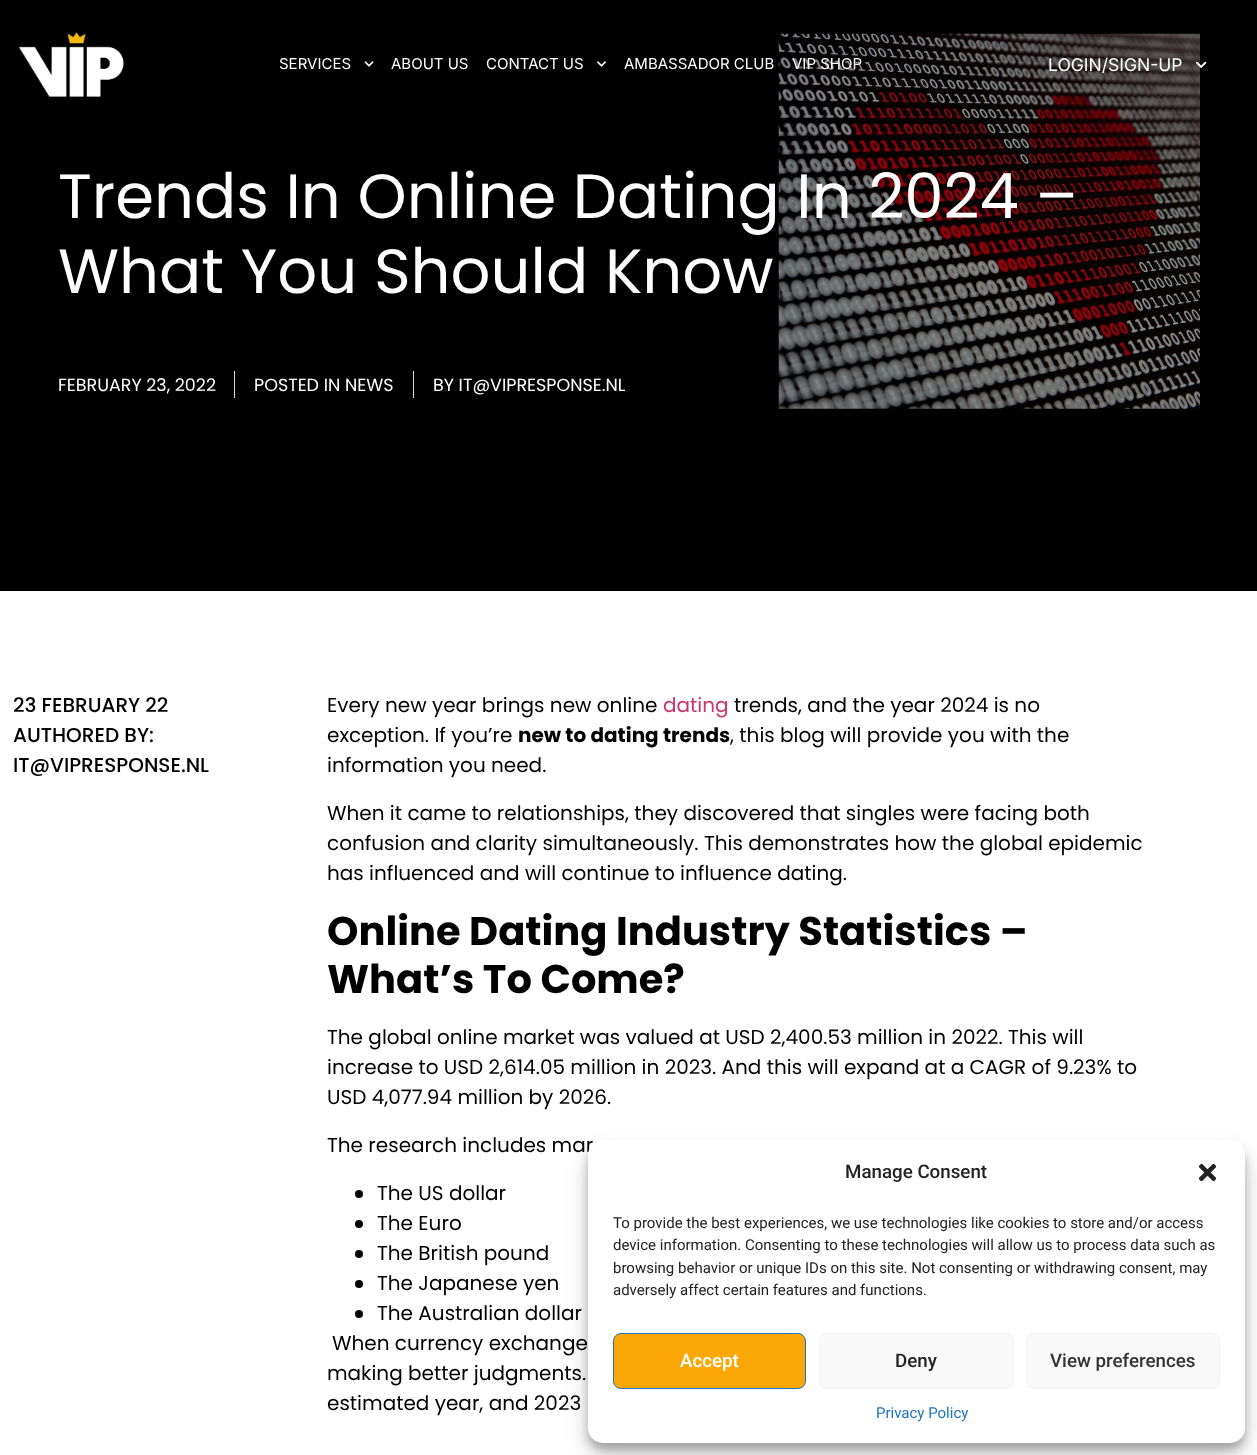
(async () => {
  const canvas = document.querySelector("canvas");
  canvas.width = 1257;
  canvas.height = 1455;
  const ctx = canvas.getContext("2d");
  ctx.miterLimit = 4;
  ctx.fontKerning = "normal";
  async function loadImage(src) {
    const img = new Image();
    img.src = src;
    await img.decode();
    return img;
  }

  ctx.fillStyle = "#ffffff";
  ctx.fillRect(0, 0, 1257, 1455);
  ctx.fillStyle = "#000000";
  ctx.fillRect(0, 0, 1257, 591);
  ctx.drawImage(await loadImage("img/1.png"), 18, 32, 106, 65);
  ctx.drawImage(await loadImage("img/2.png"), 364, 61, 10, 6);
  ctx.drawImage(await loadImage("img/3.png"), 597, 61, 9, 6);
  ctx.drawImage(await loadImage("img/5.png"), 778, 33, 422, 376);
  ctx.drawImage(await loadImage("img/4.png"), 1195, 61, 12, 7);
  ctx.fillStyle = "#dddddd";
  ctx.fillRect(234, 371, 1, 27);
  ctx.fillRect(413, 371, 1, 27);
  ctx.fillStyle = "#000000";
  ctx.beginPath();
  ctx.arc(359, 1194, 4, 0, Math.PI * 2);
  ctx.fill();
  ctx.beginPath();
  ctx.arc(359, 1224, 4, 0, Math.PI * 2);
  ctx.fill();
  ctx.beginPath();
  ctx.arc(359, 1254, 4, 0, Math.PI * 2);
  ctx.fill();
  ctx.beginPath();
  ctx.arc(359, 1284, 4, 0, Math.PI * 2);
  ctx.fill();
  ctx.beginPath();
  ctx.arc(359, 1314, 4, 0, Math.PI * 2);
  ctx.fill();
  ctx.fillStyle = "rgba(0, 0, 0, 0.23)";
  ctx.filter = "blur(4px)";
  ctx.beginPath();
  ctx.roundRect(588, 1148, 657, 302, 15);
  ctx.fill();
  ctx.filter = "none";
  ctx.fillStyle = "rgba(0, 0, 0, 0.19)";
  ctx.filter = "blur(12.5px)";
  ctx.beginPath();
  ctx.roundRect(588, 1153, 657, 302, 15);
  ctx.fill();
  ctx.filter = "none";
  ctx.font = "15px Inter";
  ctx.fillStyle = "#ffffff";
  for (const [text, x, y] of [
    ["SERVICES", 279, 69],
    ["ABOUT US", 391, 69],
    ["CONTACT US", 486, 69],
    ["AMBASSADOR CLUB", 624, 69],
    ["VIP SHOP", 792, 69],
  ]) {
    ctx.fillText(text, x, y);
  }
  ctx.font = "17.5px Inter";
  ctx.fillText("LOGIN/SIGN-UP", 1048, 71);
  ctx.font = "62.5px Poppins";
  ctx.fillText("Trends In Online Dating In 2024 –", 58, 218);
  ctx.fillText("What You Should Know", 58, 293);
  ctx.font = "17.5px Poppins";
  for (const [text, x, y] of [
    ["FEBRUARY 23, 2022", 58, 391],
    ["POSTED IN NEWS", 254, 391],
    ["BY IT@VIPRESPONSE.NL", 433, 391],
  ]) {
    ctx.fillText(text, x, y);
  }
  ctx.font = "500 20px Poppins";
  ctx.fillStyle = "#000000";
  for (const [text, x, y] of [
    ["23 FEBRUARY 22", 13, 712],
    ["AUTHORED BY:", 13, 742],
    ["IT@VIPRESPONSE.NL", 13, 772],
  ]) {
    ctx.fillText(text, x, y);
  }
  ctx.font = "20px Poppins";
  ctx.fillText("Every new year brings new online", 327, 712);
  ctx.fillStyle = "#cc3366";
  ctx.fillText("dating", 663, 712);
  ctx.fillStyle = "#000000";
  ctx.fillText("trends, and the year 2024 is no", 734, 712);
  ctx.fillText("exception. If you’re", 327, 742);
  ctx.font = "bold 20px Poppins";
  ctx.fillText("new to dating trends", 518, 742);
  ctx.font = "20px Poppins";
  for (const [text, x, y] of [
    [", this blog will provide you with the", 730, 742],
    ["information you need.", 327, 772],
    ["When it came to relationships, they discovered that singles were facing both", 327, 820],
    ["confusion and clarity simultaneously. This demonstrates how the global epidemic", 327, 850],
    ["has influenced and will continue to influence dating.", 327, 880],
  ]) {
    ctx.fillText(text, x, y);
  }
  ctx.font = "bold 40px Poppins";
  ctx.fillText("Online Dating Industry Statistics –", 327, 945);
  ctx.fillText("What’s To Come?", 327, 993);
  ctx.font = "20px Poppins";
  for (const [text, x, y] of [
    ["The global online market was valued at USD 2,400.53 million in 2022. This will", 327, 1044],
    ["increase to USD 2,614.05 million in 2023. And this will expand at a CAGR of 9.23% to", 327, 1074],
    ["USD 4,077.94 million by 2026.", 327, 1104],
    ["The research includes mar", 327, 1152],
    ["The US dollar", 377, 1200],
    ["The Euro", 377, 1230],
    ["The British pound", 377, 1260],
    ["The Japanese yen", 377, 1290],
    ["The Australian dollar", 377, 1320],
    ["When currency exchange", 332, 1350],
    ["making better judgments.", 327, 1380],
    ["estimated year, and 2023", 327, 1410],
  ]) {
    ctx.fillText(text, x, y);
  }
  ctx.fillStyle = "#ffffff";
  ctx.beginPath();
  ctx.roundRect(588, 1140, 657, 303, 15);
  ctx.fill();
  ctx.font = "500 18.75px Roboto";
  ctx.fillStyle = "#222222";
  ctx.fillText("Manage Consent", 845, 1178);
  ctx.drawImage(await loadImage("img/6.png"), 1198, 1163, 19, 19);
  ctx.font = "15px Roboto";
  for (const [text, x, y] of [
    ["To provide the best experiences, we use technologies like cookies to store and/or access", 613, 1228],
    ["device information. Consenting to these technologies will allow us to process data such as", 613, 1250],
    ["browsing behavior or unique IDs on this site. Not consenting or withdrawing consent, may", 613, 1273],
    ["adversely affect certain features and functions.", 613, 1295],
  ]) {
    ctx.fillText(text, x, y);
  }
  ctx.fillStyle = "#fba706";
  ctx.beginPath();
  ctx.roundRect(613.5, 1333.5, 192, 55, 7.5);
  ctx.fill();
  ctx.strokeStyle = "#1e73be";
  ctx.stroke();
  ctx.font = "500 18.75px Roboto";
  ctx.fillStyle = "#ffffff";
  ctx.fillText("Accept", 680, 1367);
  ctx.fillStyle = "#f9f9f9";
  ctx.beginPath();
  ctx.roundRect(819.5, 1333.5, 194, 55, 7.5);
  ctx.fill();
  ctx.strokeStyle = "#f2f2f2";
  ctx.stroke();
  ctx.fillStyle = "#222222";
  ctx.fillText("Deny", 895, 1367);
  ctx.fillStyle = "#f9f9f9";
  ctx.beginPath();
  ctx.roundRect(1026.5, 1333.5, 193, 55, 7.5);
  ctx.fill();
  ctx.stroke();
  ctx.fillStyle = "#333333";
  ctx.fillText("View preferences", 1050, 1367);
  ctx.font = "15px Roboto";
  ctx.fillStyle = "#1e73be";
  ctx.fillText("Privacy Policy", 876, 1418);
})();
